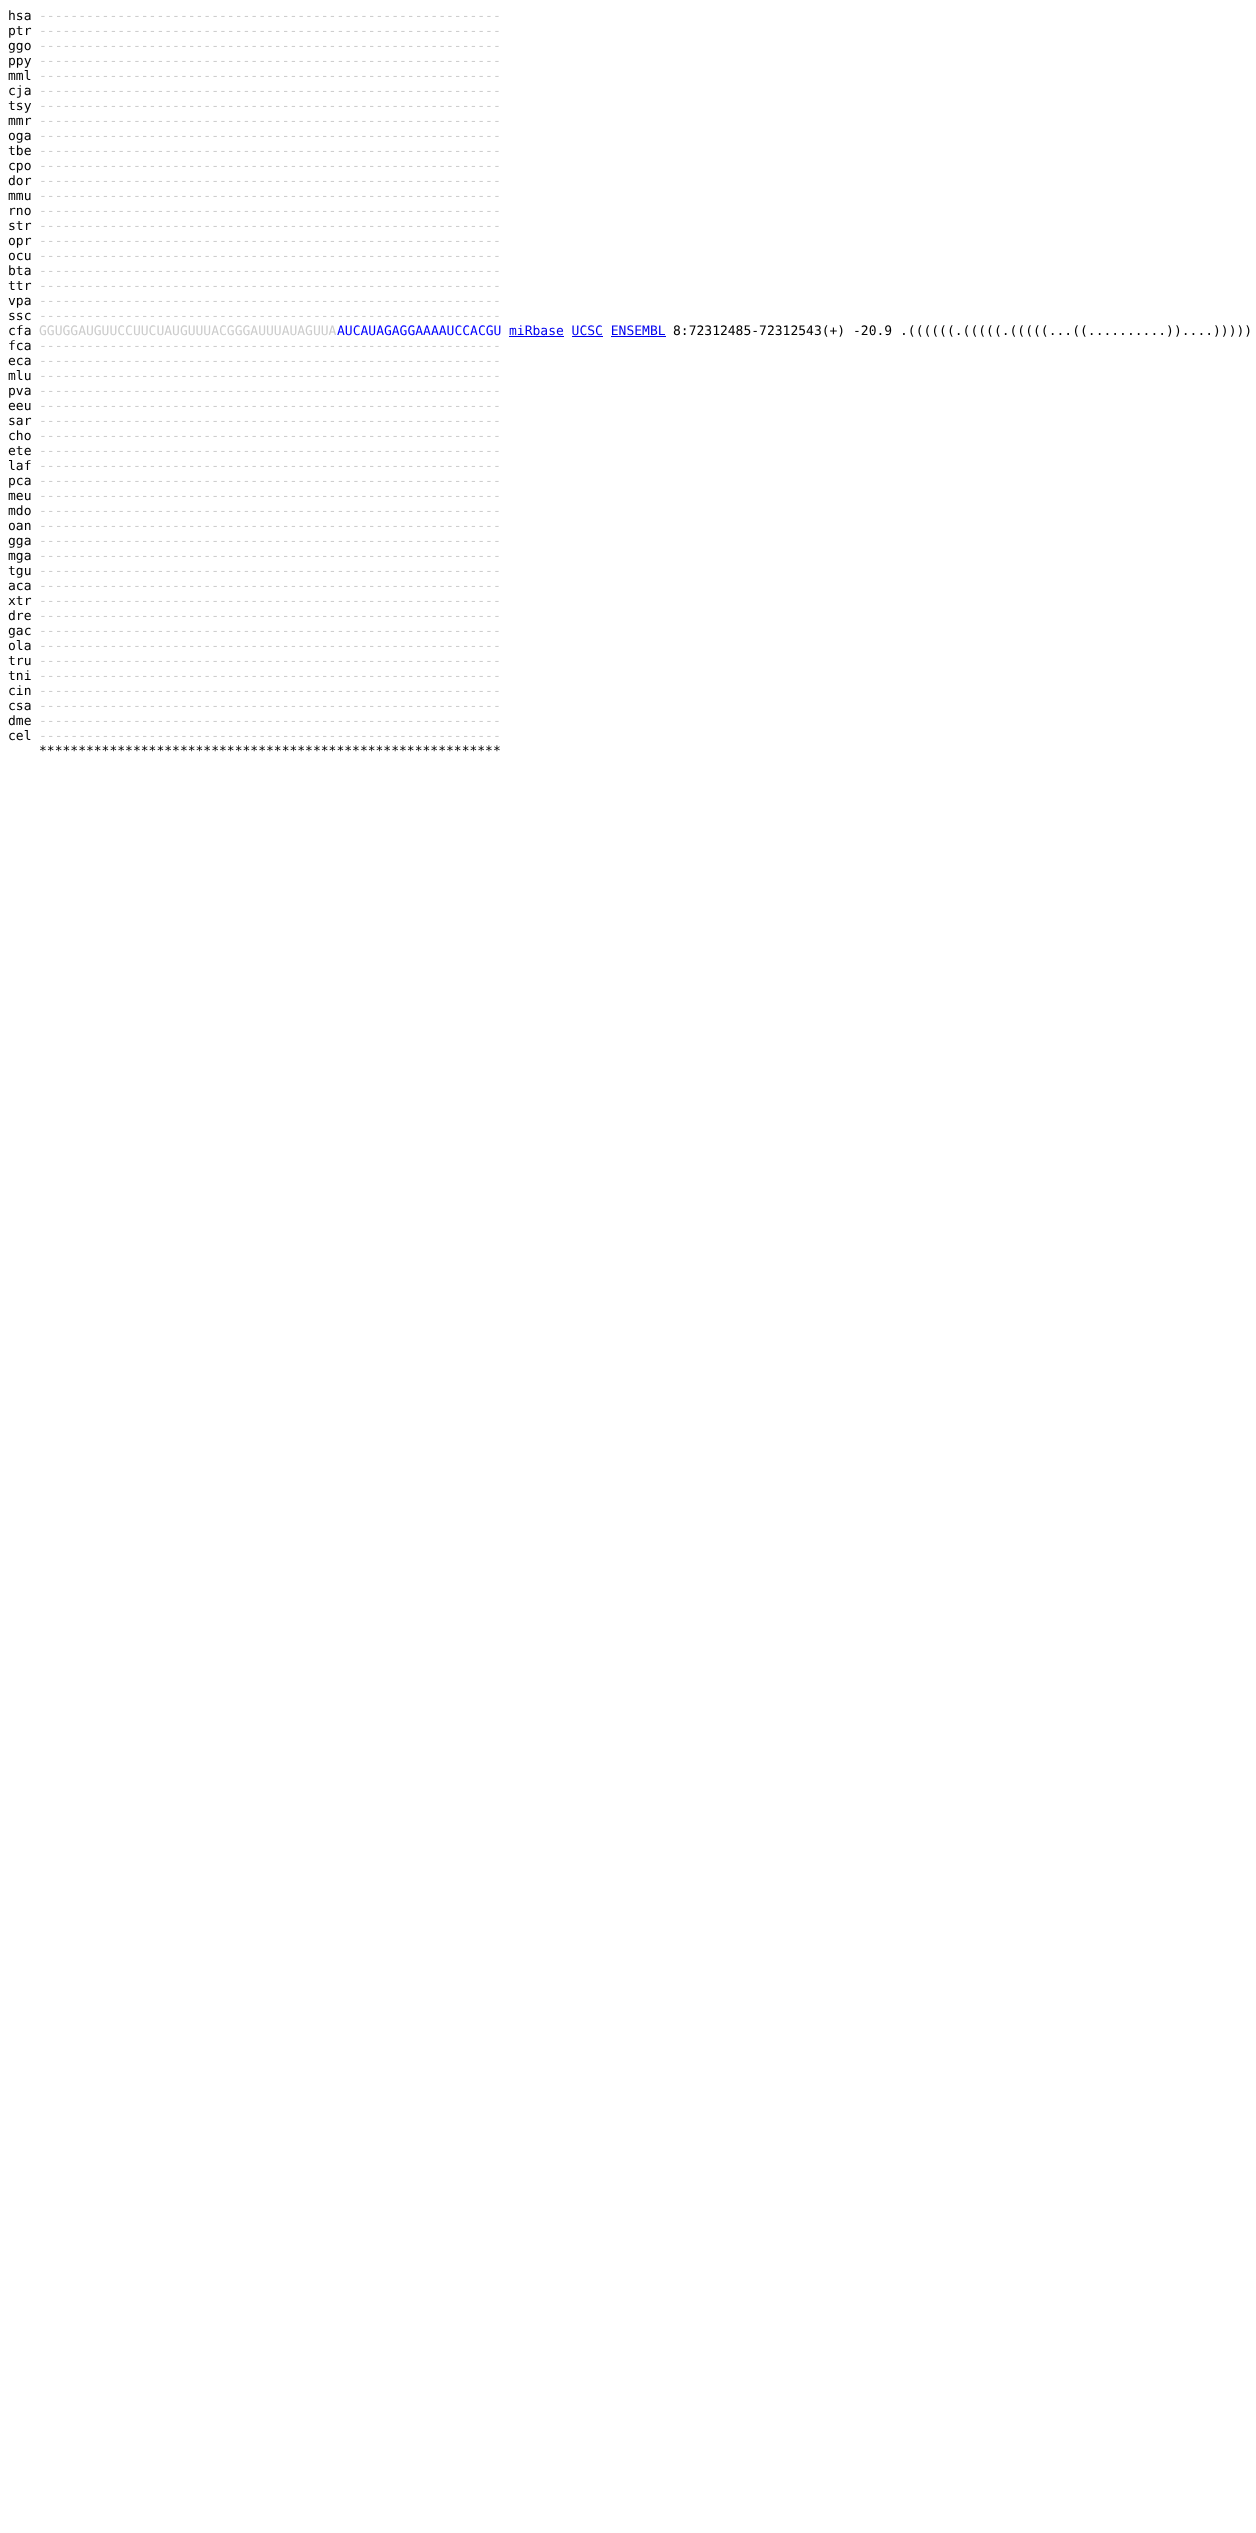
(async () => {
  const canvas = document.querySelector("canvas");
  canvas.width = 1256;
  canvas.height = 2533;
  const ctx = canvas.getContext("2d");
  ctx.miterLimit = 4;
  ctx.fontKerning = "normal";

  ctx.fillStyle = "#ffffff";
  ctx.fillRect(0, 0, 1256, 2533);
  for (const [x, y, w, h, color] of [
    [509, 336, 55, 1, "#0000ee"],
    [572, 336, 31, 1, "#0000ee"],
    [611, 336, 55, 1, "#0000ee"],
  ]) {
    ctx.fillStyle = color;
    ctx.fillRect(x, y, w, h);
  }
  ctx.font = "13px DejaVu Sans Mono";
  ctx.fillStyle = "#000000";
  ctx.fillText("hsa", 8, 20);
  ctx.fillStyle = "#cccccc";
  ctx.fillText("-----------------------------------------------------------", 39, 20);
  ctx.fillStyle = "#000000";
  ctx.fillText("ptr", 8, 35);
  ctx.fillStyle = "#cccccc";
  ctx.fillText("-----------------------------------------------------------", 39, 35);
  ctx.fillStyle = "#000000";
  ctx.fillText("ggo", 8, 50);
  ctx.fillStyle = "#cccccc";
  ctx.fillText("-----------------------------------------------------------", 39, 50);
  ctx.fillStyle = "#000000";
  ctx.fillText("ppy", 8, 65);
  ctx.fillStyle = "#cccccc";
  ctx.fillText("-----------------------------------------------------------", 39, 65);
  ctx.fillStyle = "#000000";
  ctx.fillText("mml", 8, 80);
  ctx.fillStyle = "#cccccc";
  ctx.fillText("-----------------------------------------------------------", 39, 80);
  ctx.fillStyle = "#000000";
  ctx.fillText("cja", 8, 95);
  ctx.fillStyle = "#cccccc";
  ctx.fillText("-----------------------------------------------------------", 39, 95);
  ctx.fillStyle = "#000000";
  ctx.fillText("tsy", 8, 110);
  ctx.fillStyle = "#cccccc";
  ctx.fillText("-----------------------------------------------------------", 39, 110);
  ctx.fillStyle = "#000000";
  ctx.fillText("mmr", 8, 125);
  ctx.fillStyle = "#cccccc";
  ctx.fillText("-----------------------------------------------------------", 39, 125);
  ctx.fillStyle = "#000000";
  ctx.fillText("oga", 8, 140);
  ctx.fillStyle = "#cccccc";
  ctx.fillText("-----------------------------------------------------------", 39, 140);
  ctx.fillStyle = "#000000";
  ctx.fillText("tbe", 8, 155);
  ctx.fillStyle = "#cccccc";
  ctx.fillText("-----------------------------------------------------------", 39, 155);
  ctx.fillStyle = "#000000";
  ctx.fillText("cpo", 8, 170);
  ctx.fillStyle = "#cccccc";
  ctx.fillText("-----------------------------------------------------------", 39, 170);
  ctx.fillStyle = "#000000";
  ctx.fillText("dor", 8, 185);
  ctx.fillStyle = "#cccccc";
  ctx.fillText("-----------------------------------------------------------", 39, 185);
  ctx.fillStyle = "#000000";
  ctx.fillText("mmu", 8, 200);
  ctx.fillStyle = "#cccccc";
  ctx.fillText("-----------------------------------------------------------", 39, 200);
  ctx.fillStyle = "#000000";
  ctx.fillText("rno", 8, 215);
  ctx.fillStyle = "#cccccc";
  ctx.fillText("-----------------------------------------------------------", 39, 215);
  ctx.fillStyle = "#000000";
  ctx.fillText("str", 8, 230);
  ctx.fillStyle = "#cccccc";
  ctx.fillText("-----------------------------------------------------------", 39, 230);
  ctx.fillStyle = "#000000";
  ctx.fillText("opr", 8, 245);
  ctx.fillStyle = "#cccccc";
  ctx.fillText("-----------------------------------------------------------", 39, 245);
  ctx.fillStyle = "#000000";
  ctx.fillText("ocu", 8, 260);
  ctx.fillStyle = "#cccccc";
  ctx.fillText("-----------------------------------------------------------", 39, 260);
  ctx.fillStyle = "#000000";
  ctx.fillText("bta", 8, 275);
  ctx.fillStyle = "#cccccc";
  ctx.fillText("-----------------------------------------------------------", 39, 275);
  ctx.fillStyle = "#000000";
  ctx.fillText("ttr", 8, 290);
  ctx.fillStyle = "#cccccc";
  ctx.fillText("-----------------------------------------------------------", 39, 290);
  ctx.fillStyle = "#000000";
  ctx.fillText("vpa", 8, 305);
  ctx.fillStyle = "#cccccc";
  ctx.fillText("-----------------------------------------------------------", 39, 305);
  ctx.fillStyle = "#000000";
  ctx.fillText("ssc", 8, 320);
  ctx.fillStyle = "#cccccc";
  ctx.fillText("-----------------------------------------------------------", 39, 320);
  ctx.fillStyle = "#000000";
  ctx.fillText("cfa", 8, 335);
  ctx.fillStyle = "#cccccc";
  ctx.fillText("GGUGGAUGUUCCUUCUAUGUUUACGGGAUUUAUAGUUA", 39, 335);
  ctx.fillStyle = "#0000ff";
  ctx.fillText("AUCAUAGAGGAAAAUCCACGU", 337, 335);
  ctx.fillStyle = "#0000ee";
  ctx.fillText("miRbase UCSC ENSEMBL", 509, 335);
  ctx.fillStyle = "#000000";
  ctx.fillText("8:72312485-72312543(+) -20.9 .((((((.(((((.(((((...((..........))....)))))", 673, 335);
  ctx.fillText("fca", 8, 350);
  ctx.fillStyle = "#cccccc";
  ctx.fillText("-----------------------------------------------------------", 39, 350);
  ctx.fillStyle = "#000000";
  ctx.fillText("eca", 8, 365);
  ctx.fillStyle = "#cccccc";
  ctx.fillText("-----------------------------------------------------------", 39, 365);
  ctx.fillStyle = "#000000";
  ctx.fillText("mlu", 8, 380);
  ctx.fillStyle = "#cccccc";
  ctx.fillText("-----------------------------------------------------------", 39, 380);
  ctx.fillStyle = "#000000";
  ctx.fillText("pva", 8, 395);
  ctx.fillStyle = "#cccccc";
  ctx.fillText("-----------------------------------------------------------", 39, 395);
  ctx.fillStyle = "#000000";
  ctx.fillText("eeu", 8, 410);
  ctx.fillStyle = "#cccccc";
  ctx.fillText("-----------------------------------------------------------", 39, 410);
  ctx.fillStyle = "#000000";
  ctx.fillText("sar", 8, 425);
  ctx.fillStyle = "#cccccc";
  ctx.fillText("-----------------------------------------------------------", 39, 425);
  ctx.fillStyle = "#000000";
  ctx.fillText("cho", 8, 440);
  ctx.fillStyle = "#cccccc";
  ctx.fillText("-----------------------------------------------------------", 39, 440);
  ctx.fillStyle = "#000000";
  ctx.fillText("ete", 8, 455);
  ctx.fillStyle = "#cccccc";
  ctx.fillText("-----------------------------------------------------------", 39, 455);
  ctx.fillStyle = "#000000";
  ctx.fillText("laf", 8, 470);
  ctx.fillStyle = "#cccccc";
  ctx.fillText("-----------------------------------------------------------", 39, 470);
  ctx.fillStyle = "#000000";
  ctx.fillText("pca", 8, 485);
  ctx.fillStyle = "#cccccc";
  ctx.fillText("-----------------------------------------------------------", 39, 485);
  ctx.fillStyle = "#000000";
  ctx.fillText("meu", 8, 500);
  ctx.fillStyle = "#cccccc";
  ctx.fillText("-----------------------------------------------------------", 39, 500);
  ctx.fillStyle = "#000000";
  ctx.fillText("mdo", 8, 515);
  ctx.fillStyle = "#cccccc";
  ctx.fillText("-----------------------------------------------------------", 39, 515);
  ctx.fillStyle = "#000000";
  ctx.fillText("oan", 8, 530);
  ctx.fillStyle = "#cccccc";
  ctx.fillText("-----------------------------------------------------------", 39, 530);
  ctx.fillStyle = "#000000";
  ctx.fillText("gga", 8, 545);
  ctx.fillStyle = "#cccccc";
  ctx.fillText("-----------------------------------------------------------", 39, 545);
  ctx.fillStyle = "#000000";
  ctx.fillText("mga", 8, 560);
  ctx.fillStyle = "#cccccc";
  ctx.fillText("-----------------------------------------------------------", 39, 560);
  ctx.fillStyle = "#000000";
  ctx.fillText("tgu", 8, 575);
  ctx.fillStyle = "#cccccc";
  ctx.fillText("-----------------------------------------------------------", 39, 575);
  ctx.fillStyle = "#000000";
  ctx.fillText("aca", 8, 590);
  ctx.fillStyle = "#cccccc";
  ctx.fillText("-----------------------------------------------------------", 39, 590);
  ctx.fillStyle = "#000000";
  ctx.fillText("xtr", 8, 605);
  ctx.fillStyle = "#cccccc";
  ctx.fillText("-----------------------------------------------------------", 39, 605);
  ctx.fillStyle = "#000000";
  ctx.fillText("dre", 8, 620);
  ctx.fillStyle = "#cccccc";
  ctx.fillText("-----------------------------------------------------------", 39, 620);
  ctx.fillStyle = "#000000";
  ctx.fillText("gac", 8, 635);
  ctx.fillStyle = "#cccccc";
  ctx.fillText("-----------------------------------------------------------", 39, 635);
  ctx.fillStyle = "#000000";
  ctx.fillText("ola", 8, 650);
  ctx.fillStyle = "#cccccc";
  ctx.fillText("-----------------------------------------------------------", 39, 650);
  ctx.fillStyle = "#000000";
  ctx.fillText("tru", 8, 665);
  ctx.fillStyle = "#cccccc";
  ctx.fillText("-----------------------------------------------------------", 39, 665);
  ctx.fillStyle = "#000000";
  ctx.fillText("tni", 8, 680);
  ctx.fillStyle = "#cccccc";
  ctx.fillText("-----------------------------------------------------------", 39, 680);
  ctx.fillStyle = "#000000";
  ctx.fillText("cin", 8, 695);
  ctx.fillStyle = "#cccccc";
  ctx.fillText("-----------------------------------------------------------", 39, 695);
  ctx.fillStyle = "#000000";
  ctx.fillText("csa", 8, 710);
  ctx.fillStyle = "#cccccc";
  ctx.fillText("-----------------------------------------------------------", 39, 710);
  ctx.fillStyle = "#000000";
  ctx.fillText("dme", 8, 725);
  ctx.fillStyle = "#cccccc";
  ctx.fillText("-----------------------------------------------------------", 39, 725);
  ctx.fillStyle = "#000000";
  ctx.fillText("cel", 8, 740);
  ctx.fillStyle = "#cccccc";
  ctx.fillText("-----------------------------------------------------------", 39, 740);
  ctx.fillStyle = "#000000";
  ctx.fillText("***********************************************************", 39, 755);
})();
